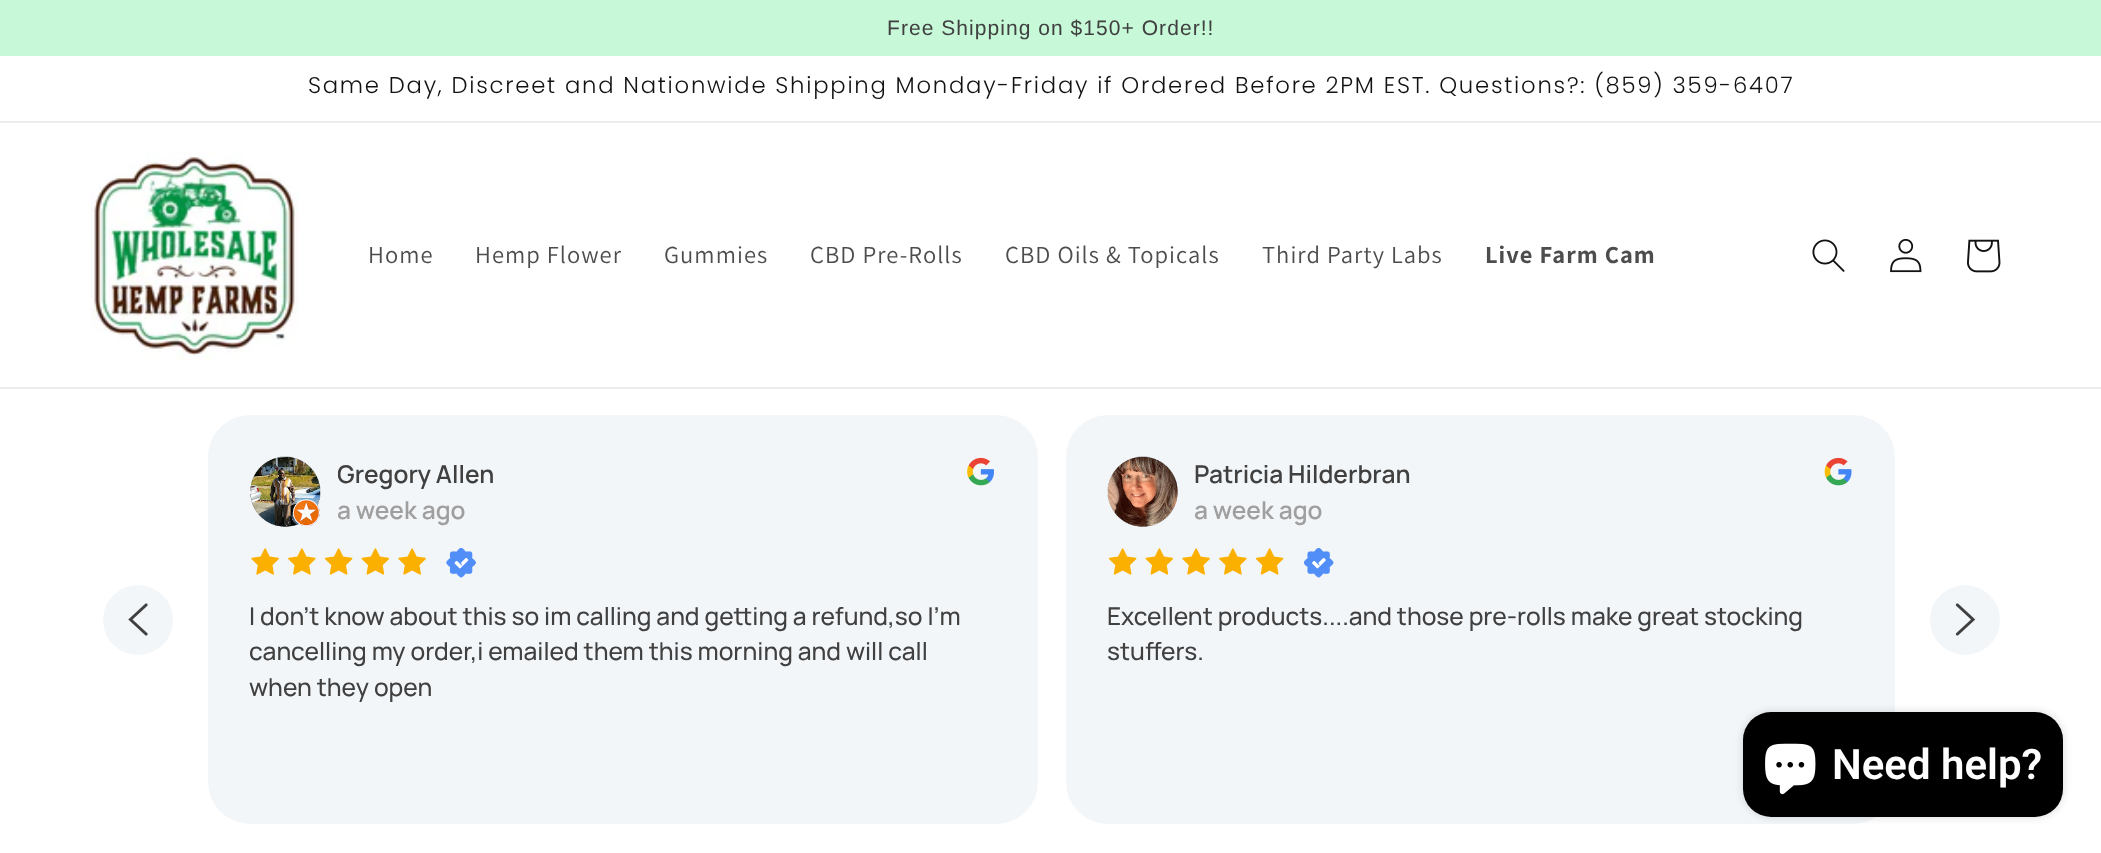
(async () => {
  const canvas = document.querySelector("canvas");
  canvas.width = 2101;
  canvas.height = 853;
  const ctx = canvas.getContext("2d");
  ctx.miterLimit = 4;
  ctx.fontKerning = "normal";
  async function loadImage(src) {
    const img = new Image();
    img.src = src;
    await img.decode();
    return img;
  }

  ctx.fillStyle = "#ffffff";
  ctx.fillRect(0, 0, 2101, 853);
  for (const [x, y, w, h, color] of [
    [0, 0, 2101, 56, "#c7f9d8"],
    [0, 121, 2101, 2, "#ececec"],
    [0, 387, 2101, 2, "#ececec"],
  ]) {
    ctx.fillStyle = color;
    ctx.fillRect(x, y, w, h);
  }
  ctx.drawImage(await loadImage("img/1.png"), 90, 151, 209, 210);
  ctx.drawImage(await loadImage("img/2.png"), 1812, 239, 33, 33);
  ctx.drawImage(await loadImage("img/3.png"), 1890, 238, 32, 35);
  ctx.drawImage(await loadImage("img/4.png"), 1967, 239, 34, 34);
  ctx.fillStyle = "#f3f6f9";
  ctx.beginPath();
  ctx.arc(138, 620, 35, 0, Math.PI * 2);
  ctx.fill();
  ctx.drawImage(await loadImage("img/5.png"), 128, 603, 20, 33);
  ctx.beginPath();
  ctx.roundRect(208, 415, 830, 409, 42);
  ctx.fill();
  ctx.drawImage(await loadImage("img/6.png"), 250, 456, 71, 71);
  ctx.drawImage(await loadImage("img/7.png"), 967, 457, 27, 29);
  ctx.drawImage(await loadImage("img/8.png"), 251, 548, 28, 27);
  ctx.drawImage(await loadImage("img/9.png"), 288, 548, 28, 27);
  ctx.drawImage(await loadImage("img/10.png"), 324, 548, 29, 27);
  ctx.drawImage(await loadImage("img/11.png"), 361, 548, 29, 27);
  ctx.drawImage(await loadImage("img/8.png"), 398, 548, 28, 27);
  ctx.drawImage(await loadImage("img/12.png"), 446, 548, 30, 30);
  ctx.beginPath();
  ctx.roundRect(1066, 415, 829, 409, 42);
  ctx.fill();
  ctx.drawImage(await loadImage("img/13.png"), 1107, 456, 71, 71);
  ctx.drawImage(await loadImage("img/14.png"), 1824, 457, 28, 29);
  ctx.drawImage(await loadImage("img/10.png"), 1108, 548, 29, 27);
  ctx.drawImage(await loadImage("img/11.png"), 1145, 548, 29, 27);
  ctx.drawImage(await loadImage("img/8.png"), 1182, 548, 28, 27);
  ctx.drawImage(await loadImage("img/9.png"), 1219, 548, 28, 27);
  ctx.drawImage(await loadImage("img/10.png"), 1255, 548, 29, 27);
  ctx.drawImage(await loadImage("img/15.png"), 1304, 548, 30, 30);
  ctx.beginPath();
  ctx.arc(1965, 620, 35, 0, Math.PI * 2);
  ctx.fill();
  ctx.drawImage(await loadImage("img/16.png"), 1955, 603, 21, 33);
  ctx.fillStyle = "rgba(0, 0, 0, 0.15)";
  ctx.filter = "blur(4.5px)";
  ctx.beginPath();
  ctx.roundRect(1743, 712, 320, 105, 28);
  ctx.fill();
  ctx.filter = "none";
  ctx.fillStyle = "#000000";
  ctx.beginPath();
  ctx.roundRect(1743, 712, 320, 105, 28);
  ctx.fill();
  ctx.drawImage(await loadImage("img/17.png"), 1765, 743, 51, 52);
  ctx.letterSpacing = "1.05px";
  ctx.font = "21px Liberation Sans";
  ctx.fillStyle = "#404040";
  ctx.fillText("Free Shipping on $150+ Order!!", 887, 35);
  ctx.letterSpacing = "1.75px";
  ctx.font = "300 22.75px Poppins";
  ctx.fillStyle = "#121212";
  ctx.fillText("Same Day, Discreet and Nationwide Shipping Monday-Friday if Ordered Before 2PM EST. Questions?: (859) 359-6407", 308, 93);
  ctx.letterSpacing = "1.05px";
  ctx.font = "24.5px Assistant";
  ctx.fillStyle = "#4d4d4d";
  for (const [text, x, y] of [
    ["Home", 368, 263],
    ["Hemp Flower", 475, 263],
    ["Gummies", 664, 263],
    ["CBD Pre-Rolls", 810, 263],
    ["CBD Oils & Topicals", 1005, 263],
    ["Third Party Labs", 1262, 263],
  ]) {
    ctx.fillText(text, x, y);
  }
  ctx.font = "bold 24.5px Assistant";
  ctx.fillText("Live Farm Cam", 1485, 263);
  ctx.save();
  ctx.beginPath();
  ctx.rect(338, 457, 156, 35);
  ctx.clip();
  ctx.letterSpacing = "0px";
  ctx.font = "600 24.5px Manrope";
  ctx.fillStyle = "#404040";
  ctx.fillText("Gregory Allen", 337, 483);
  ctx.restore();
  ctx.letterSpacing = "0px";
  ctx.font = "600 24.5px Manrope";
  ctx.fillStyle = "#9f9f9f";
  ctx.fillText("a week ago", 337, 519);
  ctx.font = "500 24.5px Manrope";
  ctx.fillStyle = "#404040";
  for (const [text, x, y] of [
    ["I don't know about this so im calling and getting a refund,so I'm", 249, 625],
    ["cancelling my order,i emailed them this morning and will call", 249, 660],
    ["when they open", 249, 696],
  ]) {
    ctx.fillText(text, x, y);
  }
  ctx.font = "600 24.5px Manrope";
  ctx.fillText("Patricia Hilderbran", 1194, 483);
  ctx.fillStyle = "#9f9f9f";
  ctx.fillText("a week ago", 1194, 519);
  ctx.font = "500 24.5px Manrope";
  ctx.fillStyle = "#404040";
  ctx.fillText("Excellent products....and those pre-rolls make great stocking", 1107, 625);
  ctx.fillText("stuffers.", 1107, 660);
  ctx.font = "600 42px Roboto";
  ctx.fillStyle = "#ffffff";
  ctx.fillText("Need help?", 1832, 779);
})();
